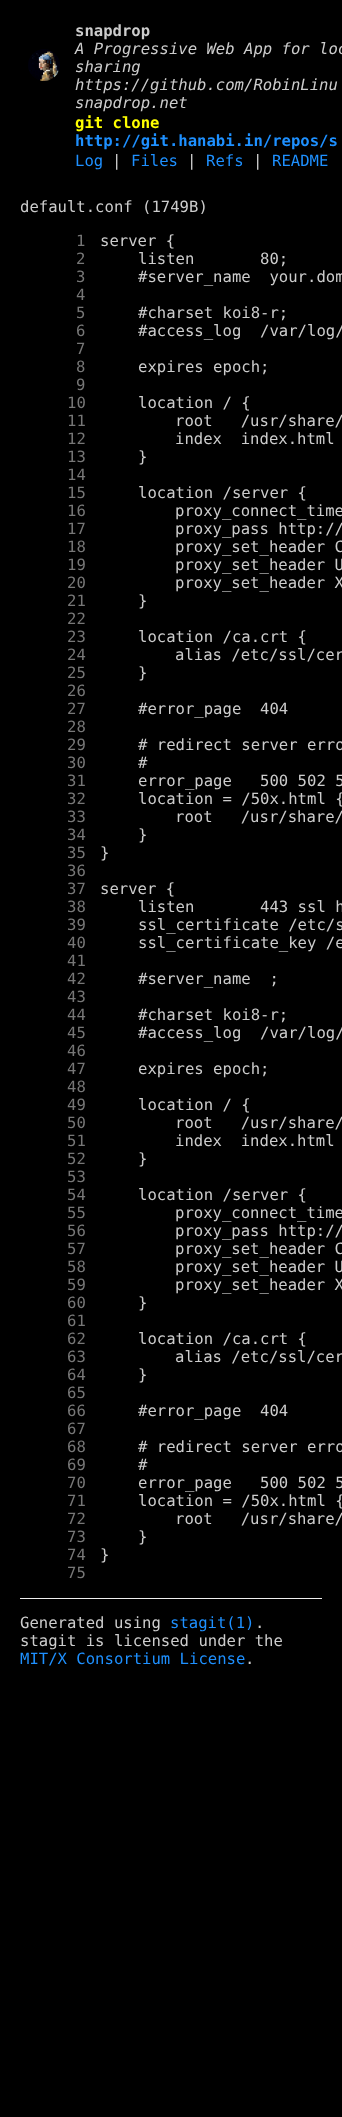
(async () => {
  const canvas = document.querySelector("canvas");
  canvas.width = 342;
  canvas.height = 2117;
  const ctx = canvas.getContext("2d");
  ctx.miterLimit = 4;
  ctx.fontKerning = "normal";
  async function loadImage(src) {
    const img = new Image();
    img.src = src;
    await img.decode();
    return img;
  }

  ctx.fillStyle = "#000000";
  ctx.fillRect(0, 0, 342, 2117);
  ctx.drawImage(await loadImage("img/1.png"), 28, 49, 32, 32);
  ctx.fillStyle = "#eeeeee";
  ctx.fillRect(20, 1598, 302, 1);
  ctx.font = "bold 15.6px DejaVu Sans Mono";
  ctx.fillStyle = "#cccccc";
  ctx.fillText("snapdrop", 75, 36);
  ctx.font = "italic 15.6px DejaVu Sans Mono";
  for (const [text, x, y] of [
    ["A Progressive Web App for loc", 75, 54],
    ["sharing", 75, 72],
    ["https://github.com/RobinLinu", 75, 90],
    ["snapdrop.net", 75, 108],
  ]) {
    ctx.fillText(text, x, y);
  }
  ctx.font = "bold 15.6px DejaVu Sans Mono";
  ctx.fillStyle = "#ffff00";
  ctx.fillText("git clone", 75, 128);
  ctx.fillStyle = "#1e90ff";
  ctx.fillText("http://git.hanabi.in/repos/s", 75, 146);
  ctx.font = "15.6px DejaVu Sans Mono";
  ctx.fillText("Log", 75, 166);
  ctx.fillStyle = "#cccccc";
  ctx.fillText("|", 112, 166);
  ctx.fillStyle = "#1e90ff";
  ctx.fillText("Files", 131, 166);
  ctx.fillStyle = "#cccccc";
  ctx.fillText("|", 187, 166);
  ctx.fillStyle = "#1e90ff";
  ctx.fillText("Refs", 206, 166);
  ctx.fillStyle = "#cccccc";
  ctx.fillText("|", 253, 166);
  ctx.fillStyle = "#1e90ff";
  ctx.fillText("README", 272, 166);
  ctx.fillStyle = "#cccccc";
  ctx.fillText("default.conf (1749B)", 20, 212);
  ctx.fillStyle = "#777777";
  ctx.fillText("1", 76, 246);
  ctx.fillStyle = "#cccccc";
  ctx.fillText("server {", 100, 246);
  ctx.fillStyle = "#777777";
  ctx.fillText("2", 76, 264);
  ctx.fillStyle = "#cccccc";
  ctx.fillText("listen       80;", 138, 264);
  ctx.fillStyle = "#777777";
  ctx.fillText("3", 76, 282);
  ctx.fillStyle = "#cccccc";
  ctx.fillText("#server_name  your.dom", 138, 282);
  ctx.fillStyle = "#777777";
  ctx.fillText("4", 76, 300);
  ctx.fillText("5", 76, 318);
  ctx.fillStyle = "#cccccc";
  ctx.fillText("#charset koi8-r;", 138, 318);
  ctx.fillStyle = "#777777";
  ctx.fillText("6", 76, 336);
  ctx.fillStyle = "#cccccc";
  ctx.fillText("#access_log  /var/log/", 138, 336);
  ctx.fillStyle = "#777777";
  ctx.fillText("7", 76, 354);
  ctx.fillText("8", 76, 372);
  ctx.fillStyle = "#cccccc";
  ctx.fillText("expires epoch;", 138, 372);
  ctx.fillStyle = "#777777";
  ctx.fillText("9", 76, 390);
  ctx.fillText("10", 67, 408);
  ctx.fillStyle = "#cccccc";
  ctx.fillText("location / {", 138, 408);
  ctx.fillStyle = "#777777";
  ctx.fillText("11", 67, 426);
  ctx.fillStyle = "#cccccc";
  ctx.fillText("root   /usr/share/", 175, 426);
  ctx.fillStyle = "#777777";
  ctx.fillText("12", 67, 444);
  ctx.fillStyle = "#cccccc";
  ctx.fillText("index  index.html", 175, 444);
  ctx.fillStyle = "#777777";
  ctx.fillText("13", 67, 462);
  ctx.fillStyle = "#cccccc";
  ctx.fillText("}", 138, 462);
  ctx.fillStyle = "#777777";
  ctx.fillText("14", 67, 480);
  ctx.fillText("15", 67, 498);
  ctx.fillStyle = "#cccccc";
  ctx.fillText("location /server {", 138, 498);
  ctx.fillStyle = "#777777";
  ctx.fillText("16", 67, 516);
  ctx.fillStyle = "#cccccc";
  ctx.fillText("proxy_connect_time", 175, 516);
  ctx.fillStyle = "#777777";
  ctx.fillText("17", 67, 534);
  ctx.fillStyle = "#cccccc";
  ctx.fillText("proxy_pass http://", 175, 534);
  ctx.fillStyle = "#777777";
  ctx.fillText("18", 67, 552);
  ctx.fillStyle = "#cccccc";
  ctx.fillText("proxy_set_header C", 175, 552);
  ctx.fillStyle = "#777777";
  ctx.fillText("19", 67, 570);
  ctx.fillStyle = "#cccccc";
  ctx.fillText("proxy_set_header U", 175, 570);
  ctx.fillStyle = "#777777";
  ctx.fillText("20", 67, 588);
  ctx.fillStyle = "#cccccc";
  ctx.fillText("proxy_set_header X", 175, 588);
  ctx.fillStyle = "#777777";
  ctx.fillText("21", 67, 606);
  ctx.fillStyle = "#cccccc";
  ctx.fillText("}", 138, 606);
  ctx.fillStyle = "#777777";
  ctx.fillText("22", 67, 624);
  ctx.fillText("23", 67, 642);
  ctx.fillStyle = "#cccccc";
  ctx.fillText("location /ca.crt {", 138, 642);
  ctx.fillStyle = "#777777";
  ctx.fillText("24", 67, 660);
  ctx.fillStyle = "#cccccc";
  ctx.fillText("alias /etc/ssl/cer", 175, 660);
  ctx.fillStyle = "#777777";
  ctx.fillText("25", 67, 678);
  ctx.fillStyle = "#cccccc";
  ctx.fillText("}", 138, 678);
  ctx.fillStyle = "#777777";
  ctx.fillText("26", 67, 696);
  ctx.fillText("27", 67, 714);
  ctx.fillStyle = "#cccccc";
  ctx.fillText("#error_page  404", 138, 714);
  ctx.fillStyle = "#777777";
  ctx.fillText("28", 67, 732);
  ctx.fillText("29", 67, 750);
  ctx.fillStyle = "#cccccc";
  ctx.fillText("# redirect server erro", 138, 750);
  ctx.fillStyle = "#777777";
  ctx.fillText("30", 67, 768);
  ctx.fillStyle = "#cccccc";
  ctx.fillText("#", 138, 768);
  ctx.fillStyle = "#777777";
  ctx.fillText("31", 67, 786);
  ctx.fillStyle = "#cccccc";
  ctx.fillText("error_page   500 502 5", 138, 786);
  ctx.fillStyle = "#777777";
  ctx.fillText("32", 67, 804);
  ctx.fillStyle = "#cccccc";
  ctx.fillText("location = /50x.html {", 138, 804);
  ctx.fillStyle = "#777777";
  ctx.fillText("33", 67, 822);
  ctx.fillStyle = "#cccccc";
  ctx.fillText("root   /usr/share/", 175, 822);
  ctx.fillStyle = "#777777";
  ctx.fillText("34", 67, 840);
  ctx.fillStyle = "#cccccc";
  ctx.fillText("}", 138, 840);
  ctx.fillStyle = "#777777";
  ctx.fillText("35", 67, 858);
  ctx.fillStyle = "#cccccc";
  ctx.fillText("}", 100, 858);
  ctx.fillStyle = "#777777";
  ctx.fillText("36", 67, 876);
  ctx.fillText("37", 67, 894);
  ctx.fillStyle = "#cccccc";
  ctx.fillText("server {", 100, 894);
  ctx.fillStyle = "#777777";
  ctx.fillText("38", 67, 912);
  ctx.fillStyle = "#cccccc";
  ctx.fillText("listen       443 ssl h", 138, 912);
  ctx.fillStyle = "#777777";
  ctx.fillText("39", 67, 930);
  ctx.fillStyle = "#cccccc";
  ctx.fillText("ssl_certificate /etc/s", 138, 930);
  ctx.fillStyle = "#777777";
  ctx.fillText("40", 67, 948);
  ctx.fillStyle = "#cccccc";
  ctx.fillText("ssl_certificate_key /e", 138, 948);
  ctx.fillStyle = "#777777";
  ctx.fillText("41", 67, 966);
  ctx.fillText("42", 67, 984);
  ctx.fillStyle = "#cccccc";
  ctx.fillText("#server_name  ;", 138, 984);
  ctx.fillStyle = "#777777";
  ctx.fillText("43", 67, 1002);
  ctx.fillText("44", 67, 1020);
  ctx.fillStyle = "#cccccc";
  ctx.fillText("#charset koi8-r;", 138, 1020);
  ctx.fillStyle = "#777777";
  ctx.fillText("45", 67, 1038);
  ctx.fillStyle = "#cccccc";
  ctx.fillText("#access_log  /var/log/", 138, 1038);
  ctx.fillStyle = "#777777";
  ctx.fillText("46", 67, 1056);
  ctx.fillText("47", 67, 1074);
  ctx.fillStyle = "#cccccc";
  ctx.fillText("expires epoch;", 138, 1074);
  ctx.fillStyle = "#777777";
  ctx.fillText("48", 67, 1092);
  ctx.fillText("49", 67, 1110);
  ctx.fillStyle = "#cccccc";
  ctx.fillText("location / {", 138, 1110);
  ctx.fillStyle = "#777777";
  ctx.fillText("50", 67, 1128);
  ctx.fillStyle = "#cccccc";
  ctx.fillText("root   /usr/share/", 175, 1128);
  ctx.fillStyle = "#777777";
  ctx.fillText("51", 67, 1146);
  ctx.fillStyle = "#cccccc";
  ctx.fillText("index  index.html", 175, 1146);
  ctx.fillStyle = "#777777";
  ctx.fillText("52", 67, 1164);
  ctx.fillStyle = "#cccccc";
  ctx.fillText("}", 138, 1164);
  ctx.fillStyle = "#777777";
  ctx.fillText("53", 67, 1182);
  ctx.fillText("54", 67, 1200);
  ctx.fillStyle = "#cccccc";
  ctx.fillText("location /server {", 138, 1200);
  ctx.fillStyle = "#777777";
  ctx.fillText("55", 67, 1218);
  ctx.fillStyle = "#cccccc";
  ctx.fillText("proxy_connect_time", 175, 1218);
  ctx.fillStyle = "#777777";
  ctx.fillText("56", 67, 1236);
  ctx.fillStyle = "#cccccc";
  ctx.fillText("proxy_pass http://", 175, 1236);
  ctx.fillStyle = "#777777";
  ctx.fillText("57", 67, 1254);
  ctx.fillStyle = "#cccccc";
  ctx.fillText("proxy_set_header C", 175, 1254);
  ctx.fillStyle = "#777777";
  ctx.fillText("58", 67, 1272);
  ctx.fillStyle = "#cccccc";
  ctx.fillText("proxy_set_header U", 175, 1272);
  ctx.fillStyle = "#777777";
  ctx.fillText("59", 67, 1290);
  ctx.fillStyle = "#cccccc";
  ctx.fillText("proxy_set_header X", 175, 1290);
  ctx.fillStyle = "#777777";
  ctx.fillText("60", 67, 1308);
  ctx.fillStyle = "#cccccc";
  ctx.fillText("}", 138, 1308);
  ctx.fillStyle = "#777777";
  ctx.fillText("61", 67, 1326);
  ctx.fillText("62", 67, 1344);
  ctx.fillStyle = "#cccccc";
  ctx.fillText("location /ca.crt {", 138, 1344);
  ctx.fillStyle = "#777777";
  ctx.fillText("63", 67, 1362);
  ctx.fillStyle = "#cccccc";
  ctx.fillText("alias /etc/ssl/cer", 175, 1362);
  ctx.fillStyle = "#777777";
  ctx.fillText("64", 67, 1380);
  ctx.fillStyle = "#cccccc";
  ctx.fillText("}", 138, 1380);
  ctx.fillStyle = "#777777";
  ctx.fillText("65", 67, 1398);
  ctx.fillText("66", 67, 1416);
  ctx.fillStyle = "#cccccc";
  ctx.fillText("#error_page  404", 138, 1416);
  ctx.fillStyle = "#777777";
  ctx.fillText("67", 67, 1434);
  ctx.fillText("68", 67, 1452);
  ctx.fillStyle = "#cccccc";
  ctx.fillText("# redirect server erro", 138, 1452);
  ctx.fillStyle = "#777777";
  ctx.fillText("69", 67, 1470);
  ctx.fillStyle = "#cccccc";
  ctx.fillText("#", 138, 1470);
  ctx.fillStyle = "#777777";
  ctx.fillText("70", 67, 1488);
  ctx.fillStyle = "#cccccc";
  ctx.fillText("error_page   500 502 5", 138, 1488);
  ctx.fillStyle = "#777777";
  ctx.fillText("71", 67, 1506);
  ctx.fillStyle = "#cccccc";
  ctx.fillText("location = /50x.html {", 138, 1506);
  ctx.fillStyle = "#777777";
  ctx.fillText("72", 67, 1524);
  ctx.fillStyle = "#cccccc";
  ctx.fillText("root   /usr/share/", 175, 1524);
  ctx.fillStyle = "#777777";
  ctx.fillText("73", 67, 1542);
  ctx.fillStyle = "#cccccc";
  ctx.fillText("}", 138, 1542);
  ctx.fillStyle = "#777777";
  ctx.fillText("74", 67, 1560);
  ctx.fillStyle = "#cccccc";
  ctx.fillText("}", 100, 1560);
  ctx.fillStyle = "#777777";
  ctx.fillText("75", 67, 1578);
  ctx.fillStyle = "#cccccc";
  ctx.fillText("Generated using", 20, 1628);
  ctx.fillStyle = "#1e90ff";
  ctx.fillText("stagit(1)", 170, 1628);
  ctx.fillStyle = "#cccccc";
  ctx.fillText(".", 255, 1628);
  ctx.fillText("stagit is licensed under the", 20, 1646);
  ctx.fillStyle = "#1e90ff";
  ctx.fillText("MIT/X Consortium License", 20, 1664);
  ctx.fillStyle = "#cccccc";
  ctx.fillText(".", 245, 1664);
})();
